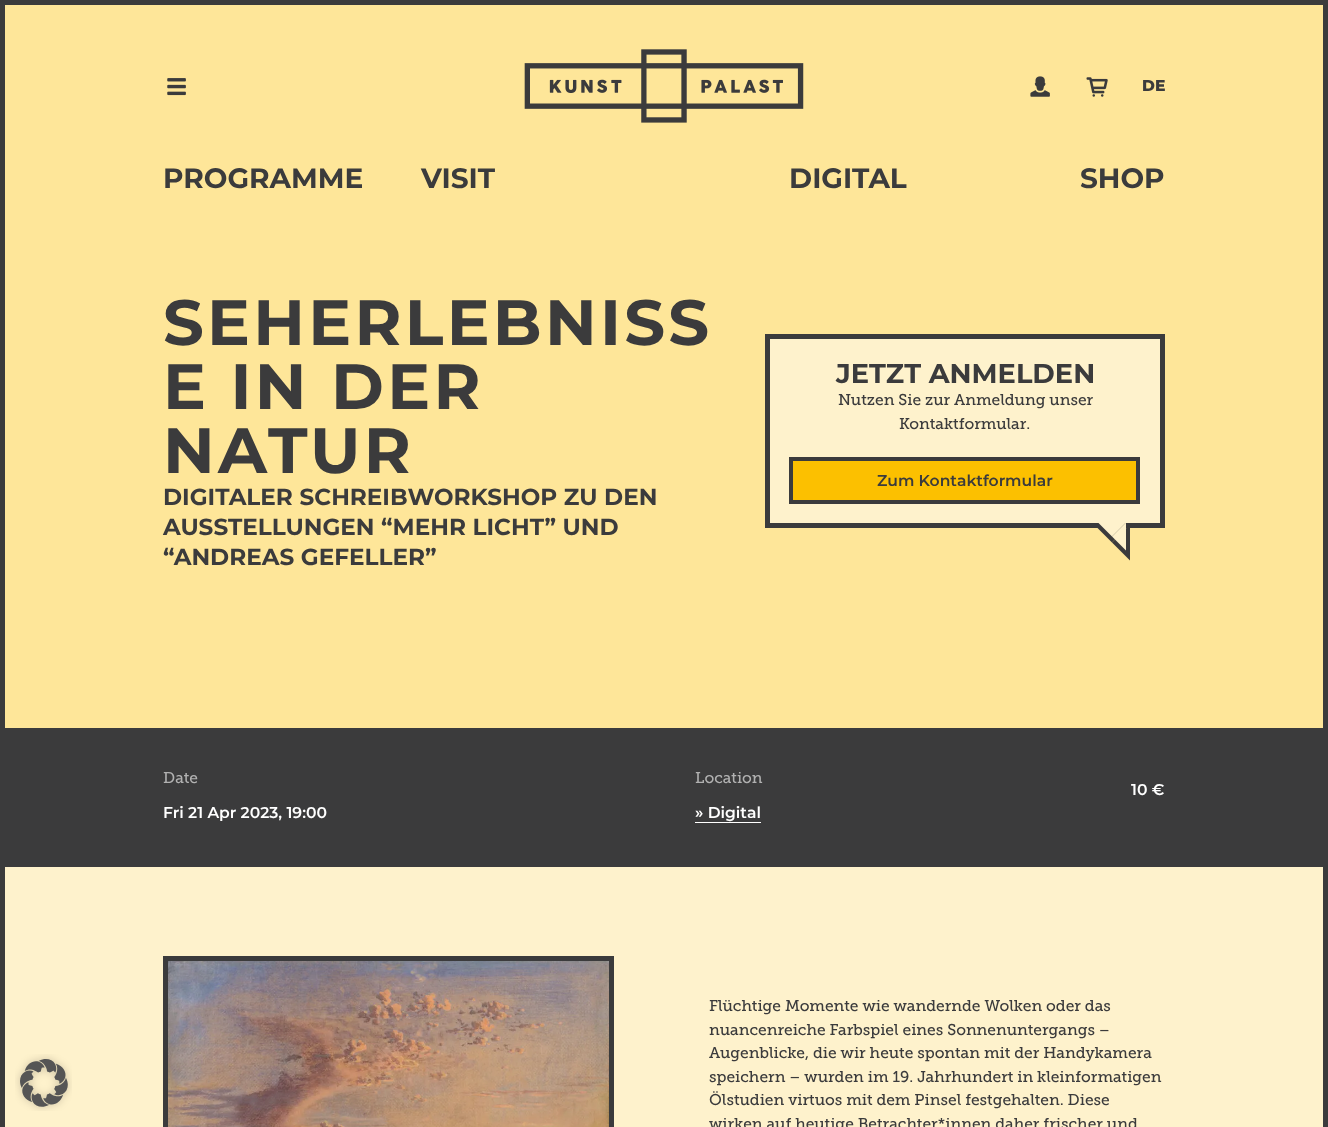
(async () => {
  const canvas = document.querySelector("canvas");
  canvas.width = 1328;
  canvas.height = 1127;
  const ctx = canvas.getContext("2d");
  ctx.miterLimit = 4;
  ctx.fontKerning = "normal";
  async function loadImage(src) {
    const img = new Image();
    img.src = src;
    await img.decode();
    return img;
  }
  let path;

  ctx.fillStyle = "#fef2cc";
  ctx.fillRect(0, 0, 1328, 1127);
  for (const [x, y, w, h, color] of [
    [5, 5, 1318, 723, "#fee699"],
    [0, 0, 1328, 5, "#3b3b3c"],
    [1323, 0, 5, 1127, "#3b3b3c"],
    [0, 0, 5, 1127, "#3b3b3c"],
  ]) {
    ctx.fillStyle = color;
    ctx.fillRect(x, y, w, h);
  }
  ctx.drawImage(await loadImage("img/1.png"), 167, 78, 19, 18);
  ctx.drawImage(await loadImage("img/2.png"), 524, 49, 280, 74);
  ctx.drawImage(await loadImage("img/3.png"), 1030, 76, 20, 21);
  ctx.drawImage(await loadImage("img/4.png"), 1086, 77, 22, 20);
  ctx.drawImage(await loadImage("img/5.png"), 15, 1054, 57, 57);
  ctx.fillStyle = "#fef2cc";
  ctx.beginPath();
  ctx.rect(767.5, 336.5, 395, 189);
  ctx.fill();
  ctx.strokeStyle = "#3b3b3c";
  ctx.lineWidth = 5;
  ctx.stroke();
  ctx.fillStyle = "#fcc000";
  ctx.beginPath();
  ctx.rect(791, 459, 347, 43);
  ctx.fill();
  ctx.lineWidth = 4;
  ctx.stroke();
  ctx.fillStyle = "#3b3b3c";
  path = new Path2D("M1130 560.5V524.5L1112 542.5Z");
  ctx.fill(path);
  path = new Path2D("M1130 524.5H1094L1112 542.5Z");
  ctx.fill(path);
  ctx.fillStyle = "#fef2cc";
  path = new Path2D("M1126 550.5V522.5L1112 536.5Z");
  ctx.fill(path);
  path = new Path2D("M1126 522.5H1098L1112 536.5Z");
  ctx.fill(path);
  ctx.fillStyle = "#3b3b3c";
  ctx.fillRect(5, 728, 1318, 139);
  ctx.fillStyle = "#ffffff";
  ctx.fillRect(695, 822, 66, 1);
  ctx.lineWidth = 5;
  ctx.strokeRect(165.5, 958.5, 446, 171);
  ctx.drawImage(await loadImage("img/6.png"), 168, 961, 441, 166);
  ctx.font = "800 15.6px Montserrat";
  ctx.fillStyle = "#3b3b3c";
  ctx.fillText("DE", 1142, 91);
  ctx.font = "bold 28px Montserrat";
  for (const [text, x, y] of [
    ["PROGRAMME", 163, 188],
    ["VISIT", 421, 188],
    ["DIGITAL", 789, 188],
    ["SHOP", 1080, 188],
  ]) {
    ctx.fillText(text, x, y);
  }
  ctx.letterSpacing = "3.25px";
  ctx.font = "bold 64px Montserrat";
  for (const [text, x, y] of [
    ["SEHERLEBNISS", 163, 345],
    ["E IN DER", 163, 409],
    ["NATUR", 163, 473],
  ]) {
    ctx.fillText(text, x, y);
  }
  ctx.letterSpacing = "0px";
  ctx.font = "bold 23.15px Montserrat";
  for (const [text, x, y] of [
    ["DIGITALER SCHREIBWORKSHOP ZU DEN", 163, 505],
    ["AUSSTELLUNGEN “MEHR LICHT” UND", 163, 535],
    ["“ANDREAS GEFELLER”", 163, 565],
  ]) {
    ctx.fillText(text, x, y);
  }
  ctx.font = "bold 27.25px Montserrat";
  ctx.fillText("JETZT ANMELDEN", 836, 383);
  ctx.font = "15.6px 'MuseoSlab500'";
  ctx.fillText("Nutzen Sie zur Anmeldung unser", 838, 405);
  ctx.fillText("Kontaktformular.", 899, 429);
  ctx.font = "600 15.6px Montserrat";
  ctx.fillText("Zum Kontaktformular", 877, 486);
  ctx.font = "15.6px 'MuseoSlab500'";
  ctx.fillStyle = "#b1b1b1";
  ctx.fillText("Date", 163, 783);
  ctx.font = "600 15.6px Montserrat";
  ctx.fillStyle = "#ffffff";
  ctx.fillText("Fri 21 Apr 2023, 19:00", 163, 818);
  ctx.font = "15.6px 'MuseoSlab500'";
  ctx.fillStyle = "#b1b1b1";
  ctx.fillText("Location", 695, 783);
  ctx.font = "600 15.6px Montserrat";
  ctx.fillStyle = "#ffffff";
  ctx.fillText("» Digital", 695, 818);
  ctx.fillText("10 €", 1131, 795);
  ctx.font = "15.6px 'MuseoSlab500'";
  ctx.fillStyle = "#3b3b3c";
  for (const [text, x, y] of [
    ["Flüchtige Momente wie wandernde Wolken oder das", 709, 1011],
    ["nuancenreiche Farbspiel eines Sonnenuntergangs –", 709, 1035],
    ["Augenblicke, die wir heute spontan mit der Handykamera", 709, 1058],
    ["speichern – wurden im 19. Jahrhundert in kleinformatigen", 709, 1082],
    ["Ölstudien virtuos mit dem Pinsel festgehalten. Diese", 709, 1105],
    ["wirken auf heutige Betrachter*innen daher frischer und", 709, 1129],
  ]) {
    ctx.fillText(text, x, y);
  }
})();
